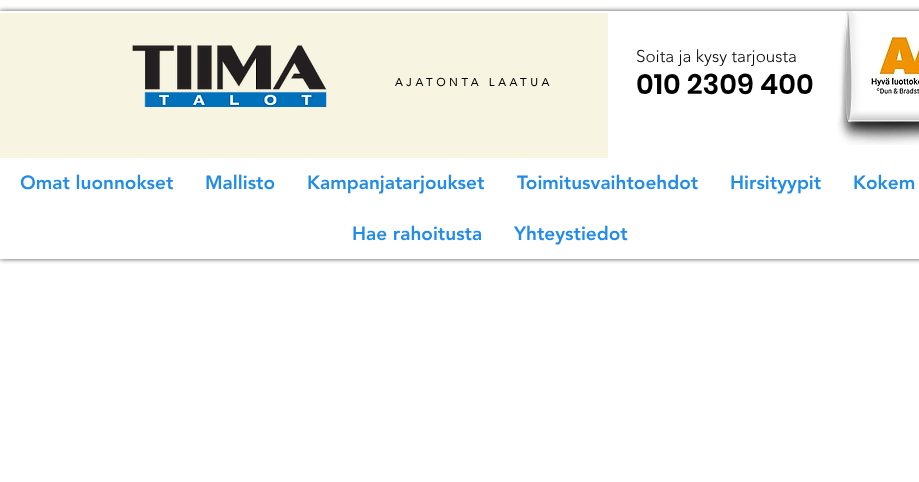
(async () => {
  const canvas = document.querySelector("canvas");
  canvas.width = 919;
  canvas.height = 482;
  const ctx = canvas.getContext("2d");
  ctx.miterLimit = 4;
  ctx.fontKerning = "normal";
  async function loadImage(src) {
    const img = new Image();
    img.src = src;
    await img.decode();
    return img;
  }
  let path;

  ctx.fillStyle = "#ffffff";
  ctx.fillRect(0, 0, 919, 482);
  ctx.save();
  path = new Path2D("M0 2H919V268H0ZM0 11H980V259H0Z");
  ctx.clip(path, "evenodd");
  ctx.fillStyle = "rgba(0, 0, 0, 0.7)";
  ctx.filter = "blur(2.5px)";
  ctx.beginPath();
  ctx.rect(0, 11, 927, 248);
  ctx.fill();
  ctx.filter = "none";
  ctx.restore();
  ctx.fillStyle = "#f7f5e1";
  ctx.fillRect(0, 13, 608, 145);
  ctx.drawImage(await loadImage("img/1.png"), 132, 45, 195, 62);
  ctx.drawImage(await loadImage("img/2.png"), 837, 11, 82, 134);
  ctx.letterSpacing = "3.8px";
  ctx.font = "bold 11px 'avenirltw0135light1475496'";
  ctx.fillStyle = "#000000";
  ctx.fillText("AJATONTA LAATUA", 395, 86);
  ctx.letterSpacing = "0px";
  ctx.font = "300 17px 'avenirltw0135light1475496'";
  ctx.fillText("Soita ja kysy tarjousta", 636, 62);
  ctx.font = "600 28px Poppins";
  ctx.fillText("010 2309 400", 636, 94);
  ctx.font = "900 19px 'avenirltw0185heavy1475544'";
  ctx.fillStyle = "#238ce8";
  for (const [text, x, y] of [
    ["Omat luonnokset", 20, 189],
    ["Mallisto", 205, 189],
    ["Kampanjatarjoukset", 307, 189],
    ["Toimitusvaihtoehdot", 517, 189],
    ["Hirsityypit", 730, 189],
    ["Kokem", 853, 189],
    ["Hae rahoitusta", 352, 240],
    ["Yhteystiedot", 514, 240],
  ]) {
    ctx.fillText(text, x, y);
  }
})();
